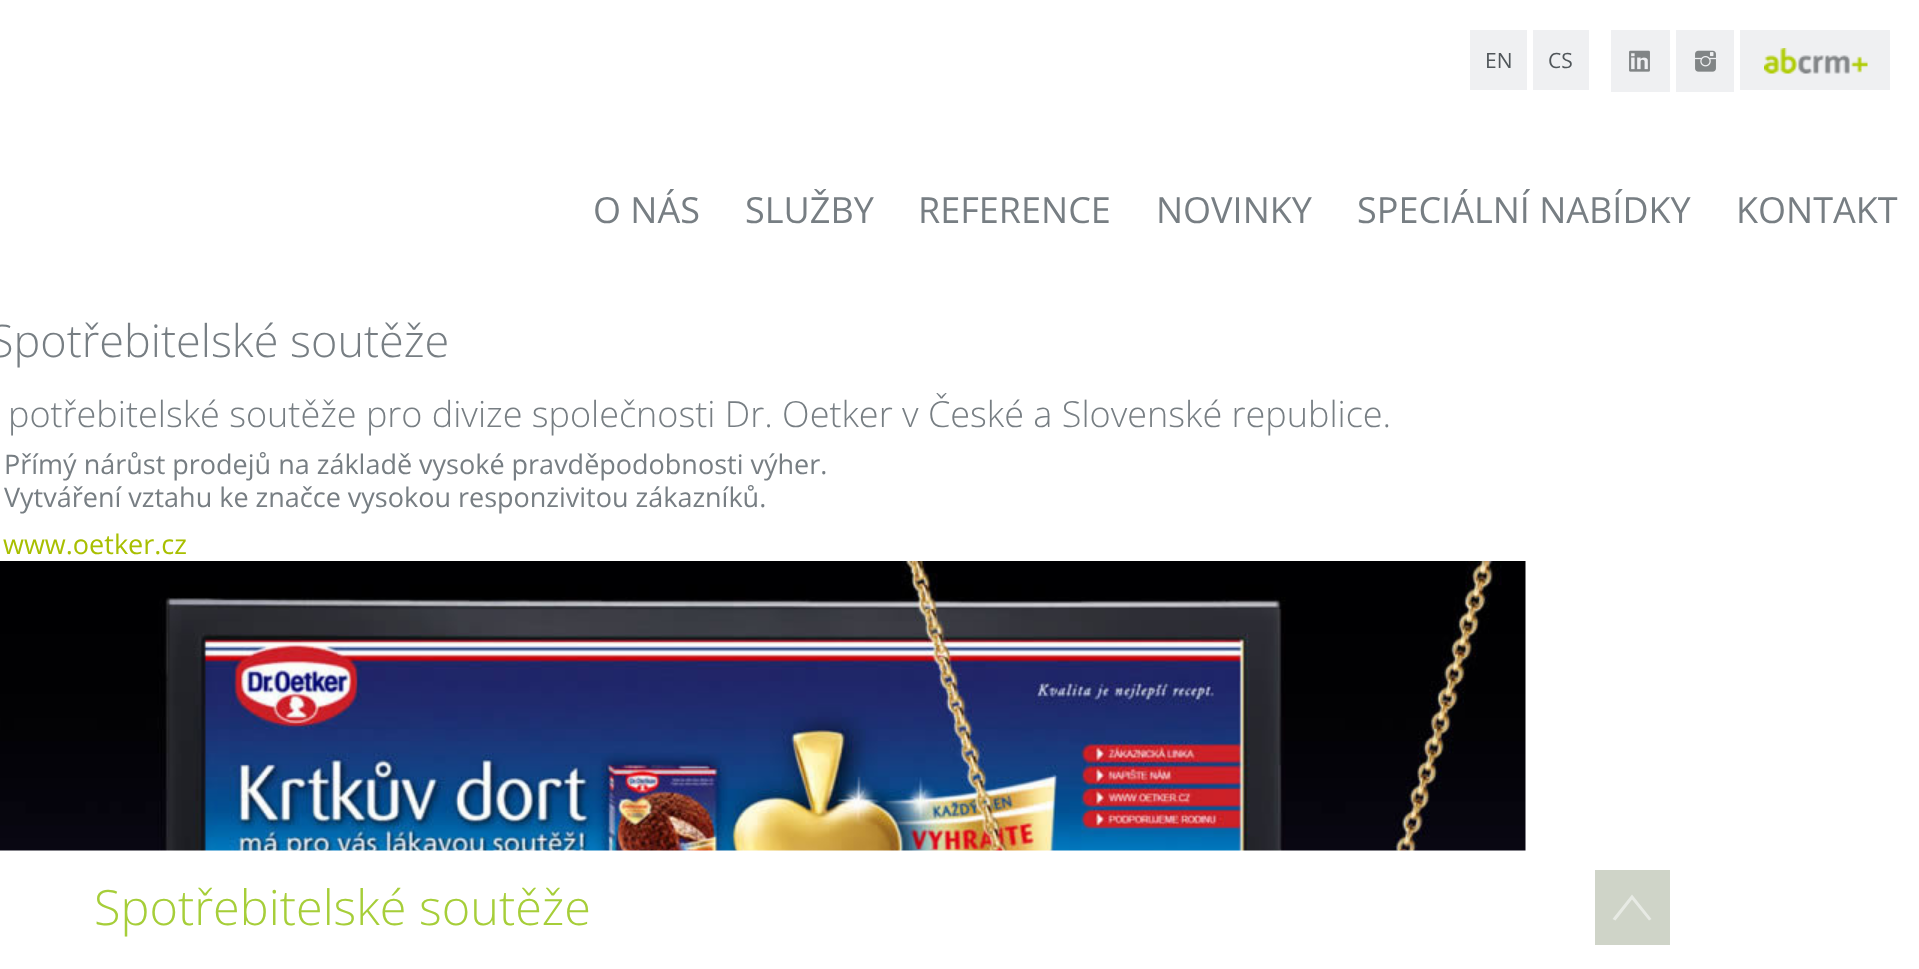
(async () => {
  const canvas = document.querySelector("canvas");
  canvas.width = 1919;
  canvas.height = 969;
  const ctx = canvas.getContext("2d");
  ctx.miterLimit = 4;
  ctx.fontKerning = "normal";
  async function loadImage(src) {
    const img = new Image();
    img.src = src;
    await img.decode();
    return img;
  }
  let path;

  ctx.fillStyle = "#ffffff";
  ctx.fillRect(0, 0, 1919, 969);
  for (const [x, y, w, h, color] of [
    [1470, 30, 57, 60, "#eff0f2"],
    [1533, 30, 56, 60, "#eff0f2"],
    [1611, 30, 59, 62, "#eff0f2"],
  ]) {
    ctx.fillStyle = color;
    ctx.fillRect(x, y, w, h);
  }
  ctx.drawImage(await loadImage("img/1.png"), 1629, 50, 21, 22);
  ctx.fillRect(1676, 30, 58, 62);
  ctx.drawImage(await loadImage("img/2.png"), 1695, 50, 21, 22);
  ctx.fillRect(1740, 30, 150, 60);
  ctx.drawImage(await loadImage("img/3.png"), 1764, 48, 104, 26);
  ctx.drawImage(await loadImage("img/4.png"), 0, 561, 1526, 290);
  ctx.fillStyle = "#cfd4c8";
  ctx.fillRect(1595, 870, 75, 75);
  ctx.fillStyle = "#e7eae4";
  path = new Path2D("M1632 894.5L1651.5 919L1649 920.5L1632 899.5L1615.5 920.5L1612.5 919Z");
  ctx.fill(path);
  ctx.font = "21px Open Sans";
  ctx.fillStyle = "#50565a";
  ctx.fillText("EN", 1485, 68);
  ctx.fillText("CS", 1548, 68);
  ctx.font = "36px Open Sans";
  ctx.fillStyle = "#777e83";
  for (const [text, x, y] of [
    ["O NÁS", 593, 223],
    ["SLUŽBY", 745, 223],
    ["REFERENCE", 918, 223],
    ["NOVINKY", 1156, 223],
    ["SPECIÁLNÍ NABÍDKY", 1357, 223],
    ["KONTAKT", 1736, 223],
  ]) {
    ctx.fillText(text, x, y);
  }
  ctx.font = "300 45px Open Sans";
  ctx.fillText("Spotřebitelské soutěže", -11, 357);
  ctx.font = "300 36px Open Sans";
  ctx.fillText("potřebitelské soutěže pro divize společnosti Dr. Oetker v České a Slovenské republice.", 8, 427);
  ctx.font = "27px Open Sans";
  ctx.fillText("Přímý nárůst prodejů na základě vysoké pravděpodobnosti výher.", 4, 474);
  ctx.fillText("Vytváření vztahu ke značce vysokou responzivitou zákazníků.", 4, 507);
  ctx.fillStyle = "#a8bf00";
  ctx.fillText("www.oetker.cz", 3, 554);
  ctx.font = "300 48.6px Open Sans";
  ctx.fillStyle = "#a6ce39";
  ctx.fillText("Spotřebitelské soutěže", 94, 925);
})();
